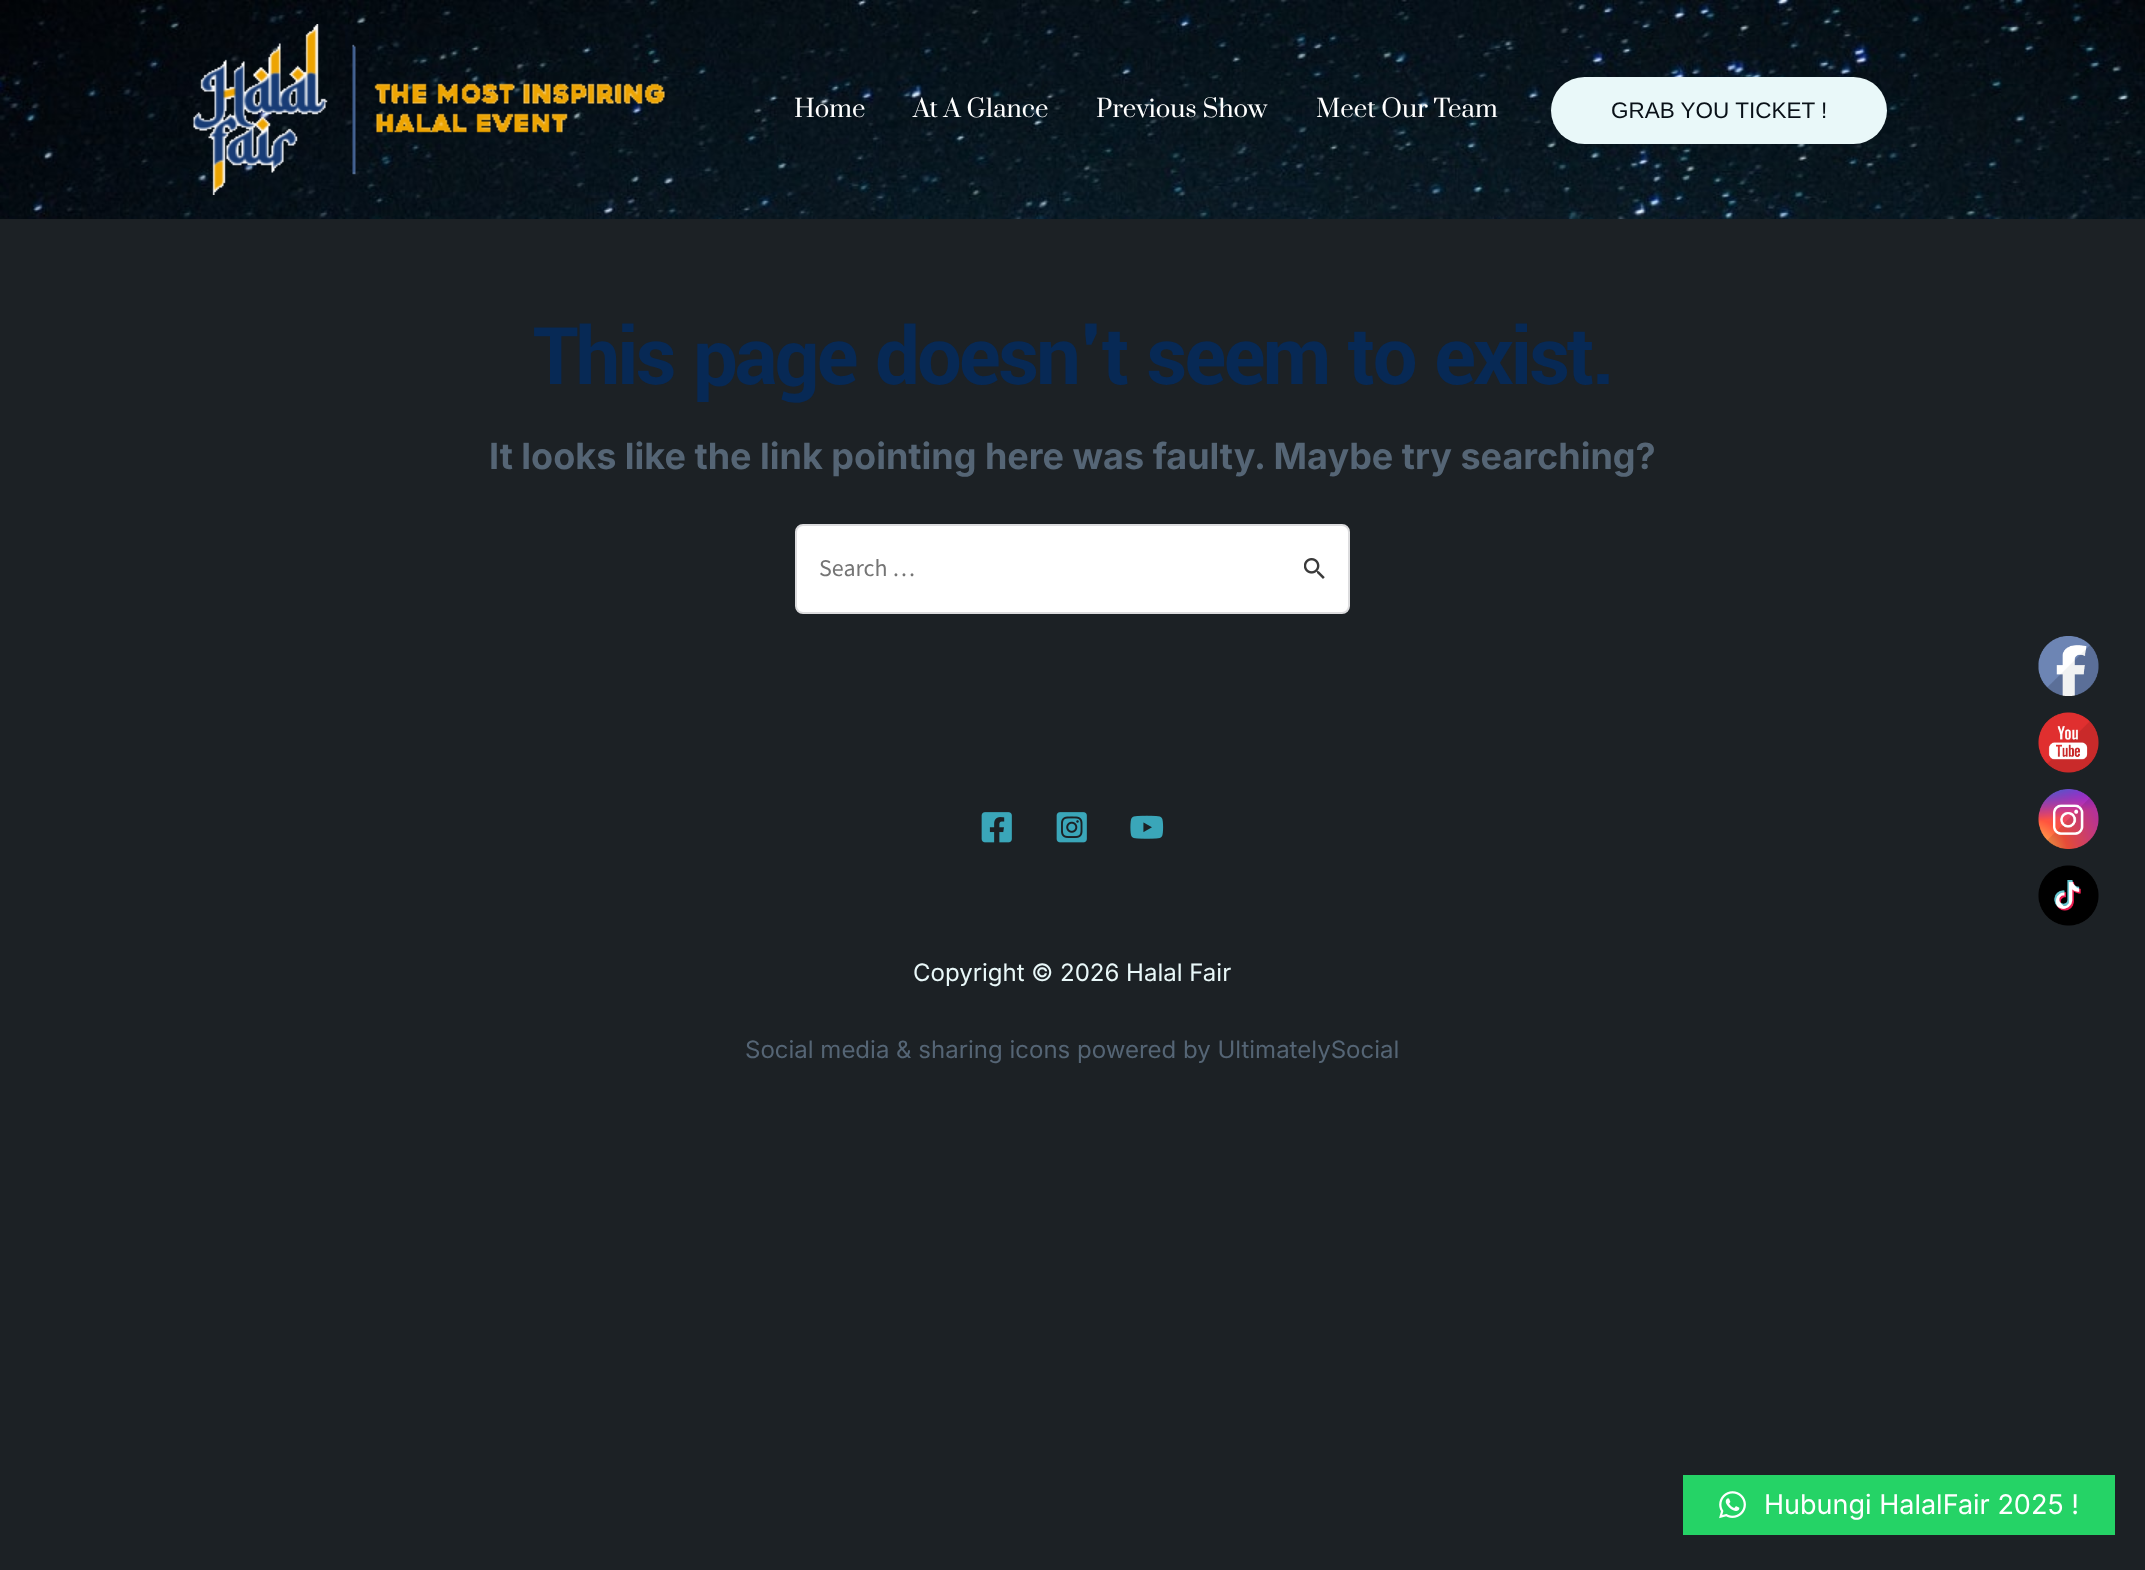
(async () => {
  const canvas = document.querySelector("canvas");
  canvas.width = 2145;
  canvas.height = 1570;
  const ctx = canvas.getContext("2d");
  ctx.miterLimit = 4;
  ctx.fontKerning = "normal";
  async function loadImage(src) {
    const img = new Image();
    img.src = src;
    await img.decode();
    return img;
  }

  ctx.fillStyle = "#1c2125";
  ctx.fillRect(0, 0, 2145, 1570);
  ctx.drawImage(await loadImage("img/1.png"), 0, 0, 2145, 219);
  ctx.drawImage(await loadImage("img/2.png"), 193, 24, 472, 171);
  ctx.fillStyle = "#e9f8f9";
  ctx.beginPath();
  ctx.roundRect(1551, 77, 336, 67, 33.5);
  ctx.fill();
  ctx.fillStyle = "#ffffff";
  ctx.beginPath();
  ctx.roundRect(796, 525, 553, 88, 7);
  ctx.fill();
  ctx.strokeStyle = "#dcdcde";
  ctx.lineWidth = 2;
  ctx.stroke();
  ctx.drawImage(await loadImage("img/3.png"), 1304, 558, 21, 21);
  ctx.drawImage(await loadImage("img/4.png"), 981, 812, 31, 31);
  ctx.drawImage(await loadImage("img/5.png"), 1056, 812, 31, 31);
  ctx.drawImage(await loadImage("img/6.png"), 1130, 815, 34, 24);
  ctx.drawImage(await loadImage("img/7.png"), 2038, 636, 61, 60);
  ctx.drawImage(await loadImage("img/8.png"), 2038, 712, 61, 61);
  ctx.drawImage(await loadImage("img/9.png"), 2038, 789, 61, 60);
  ctx.drawImage(await loadImage("img/10.png"), 2038, 865, 61, 61);
  ctx.fillStyle = "#25d366";
  ctx.fillRect(1683, 1475, 432, 60);
  ctx.drawImage(await loadImage("img/11.png"), 1719, 1491, 27, 28);
  ctx.font = "24px Prata";
  ctx.fillStyle = "#ffffff";
  for (const [text, x, y] of [
    ["Home", 794, 117],
    ["At A Glance", 913, 117],
    ["Previous Show", 1096, 117],
    ["Meet Our Team", 1316, 117],
  ]) {
    ctx.fillText(text, x, y);
  }
  ctx.font = "22.5px Liberation Sans";
  ctx.fillStyle = "#091118";
  ctx.fillText("GRAB YOU TICKET !", 1611, 118);
  ctx.letterSpacing = "-3px";
  ctx.font = "bold 88.4px Yantramanav";
  ctx.fillStyle = "#072955";
  ctx.fillText("This page doesn't seem to exist.", 533, 384);
  ctx.letterSpacing = "0px";
  ctx.font = "bold 36px Inter";
  ctx.fillStyle = "#556575";
  ctx.fillText("It looks like the link pointing here was faulty. Maybe try searching?", 489, 469);
  ctx.font = "24px Source Sans Pro";
  ctx.fillStyle = "#757575";
  ctx.fillText("Search …", 819, 576);
  ctx.font = "24px Inter";
  ctx.fillStyle = "#e9f8f9";
  ctx.fillText("Copyright © 2026 Halal Fair", 913, 981);
  ctx.fillStyle = "#556575";
  ctx.fillText("Social media & sharing icons powered by UltimatelySocial", 745, 1058);
  ctx.font = "27px Inter";
  ctx.fillStyle = "#ffffff";
  ctx.fillText("Hubungi HalalFair 2025 !", 1764, 1514);
})();
